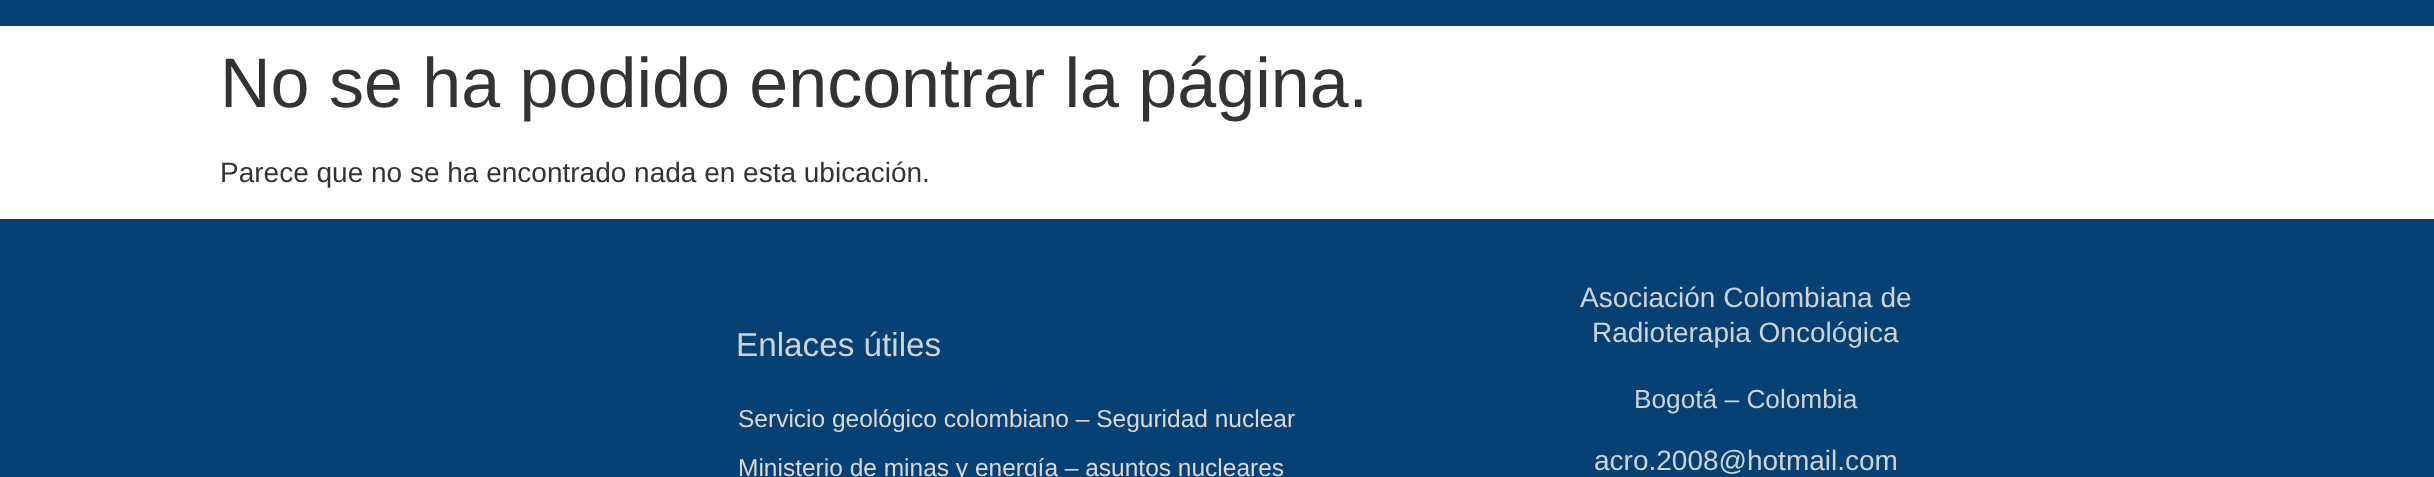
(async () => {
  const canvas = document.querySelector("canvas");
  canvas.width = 2434;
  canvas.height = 477;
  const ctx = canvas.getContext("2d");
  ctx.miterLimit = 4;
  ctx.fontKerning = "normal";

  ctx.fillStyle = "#ffffff";
  ctx.fillRect(0, 0, 2434, 477);
  ctx.fillStyle = "#074173";
  ctx.fillRect(0, 0, 2434, 26);
  ctx.fillRect(0, 219, 2434, 258);
  ctx.font = "70px Liberation Sans";
  ctx.fillStyle = "#333333";
  ctx.fillText("No se ha podido encontrar la página.", 220, 107);
  ctx.font = "28px Liberation Sans";
  ctx.fillText("Parece que no se ha encontrado nada en esta ubicación.", 220, 182);
  ctx.font = "33.25px Liberation Sans";
  ctx.fillStyle = "#cbd4d8";
  ctx.fillText("Enlaces útiles", 736, 356);
  ctx.font = "24.5px Liberation Sans";
  ctx.fillStyle = "#dad7d7";
  ctx.fillText("Servicio geológico colombiano – Seguridad nuclear", 738, 427);
  ctx.fillText("Ministerio de minas y energía – asuntos nucleares", 738, 476);
  ctx.font = "28px Liberation Sans";
  ctx.fillStyle = "#cbd4d8";
  ctx.fillText("Asociación Colombiana de", 1580, 307);
  ctx.fillText("Radioterapia Oncológica", 1592, 342);
  ctx.font = "26.25px Liberation Sans";
  ctx.fillText("Bogotá – Colombia", 1634, 408);
  ctx.font = "28px Liberation Sans";
  ctx.fillText("acro.2008@hotmail.com", 1594, 470);
})();
